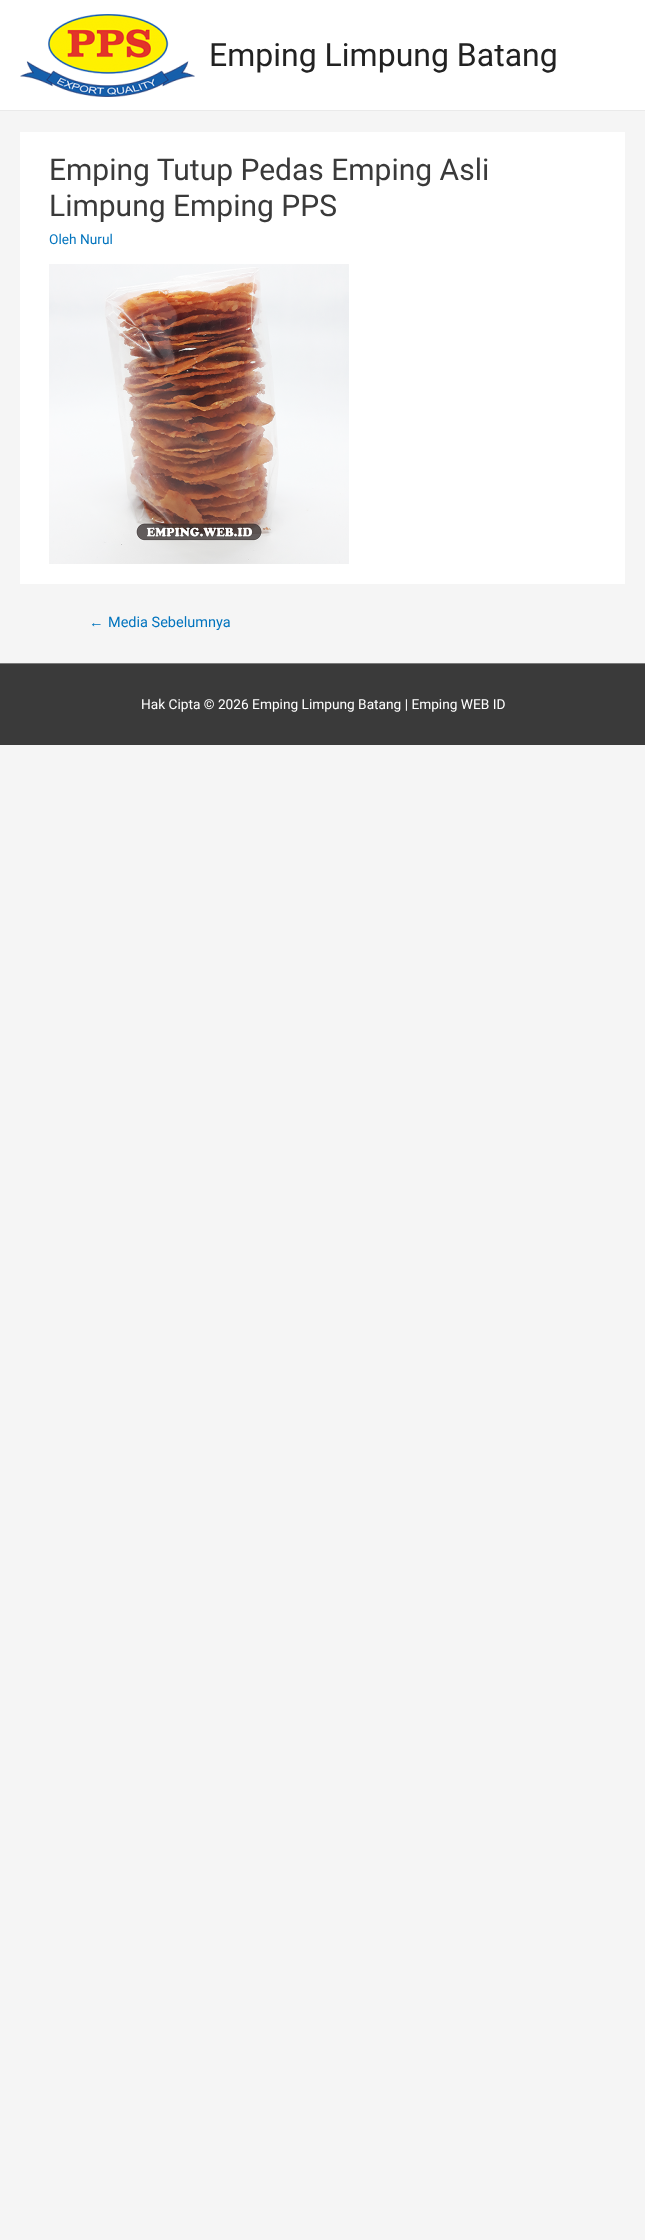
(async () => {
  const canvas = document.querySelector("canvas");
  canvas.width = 645;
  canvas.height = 2240;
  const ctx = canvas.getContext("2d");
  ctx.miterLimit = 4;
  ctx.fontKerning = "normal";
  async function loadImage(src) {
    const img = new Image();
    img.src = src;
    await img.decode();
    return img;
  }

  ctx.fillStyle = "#f5f5f5";
  ctx.fillRect(0, 0, 645, 2240);
  ctx.fillStyle = "#ffffff";
  ctx.fillRect(0, 0, 645, 110);
  ctx.fillStyle = "#eaeaea";
  ctx.fillRect(0, 110, 645, 1);
  ctx.drawImage(await loadImage("img/1.png"), 20, 14, 175, 83);
  ctx.fillStyle = "#ffffff";
  ctx.fillRect(20, 132, 605, 452);
  ctx.drawImage(await loadImage("img/2.png"), 49, 264, 300, 300);
  ctx.fillStyle = "#7a7a7a";
  ctx.fillRect(0, 663, 645, 1);
  ctx.fillStyle = "#3a3a3a";
  ctx.fillRect(0, 664, 645, 81);
  ctx.font = "32px Roboto";
  ctx.fillStyle = "#222222";
  ctx.fillText("Emping Limpung Batang", 209, 66);
  ctx.font = "30px Roboto";
  ctx.fillStyle = "#3a3a3a";
  ctx.fillText("Emping Tutup Pedas Emping Asli", 49, 180);
  ctx.fillText("Limpung Emping PPS", 49, 216);
  ctx.font = "13.7px Roboto";
  ctx.fillStyle = "#0274be";
  ctx.fillText("Oleh Nurul", 49, 244);
  ctx.font = "14.5px Liberation Sans";
  ctx.fillText("←", 89, 627);
  ctx.font = "14.5px Roboto";
  ctx.fillText("Media Sebelumnya", 108, 627);
  ctx.font = "13.7px Roboto";
  ctx.fillStyle = "#ffffff";
  ctx.fillText("Hak Cipta © 2026 Emping Limpung Batang | Emping WEB ID", 141, 709);
})();
